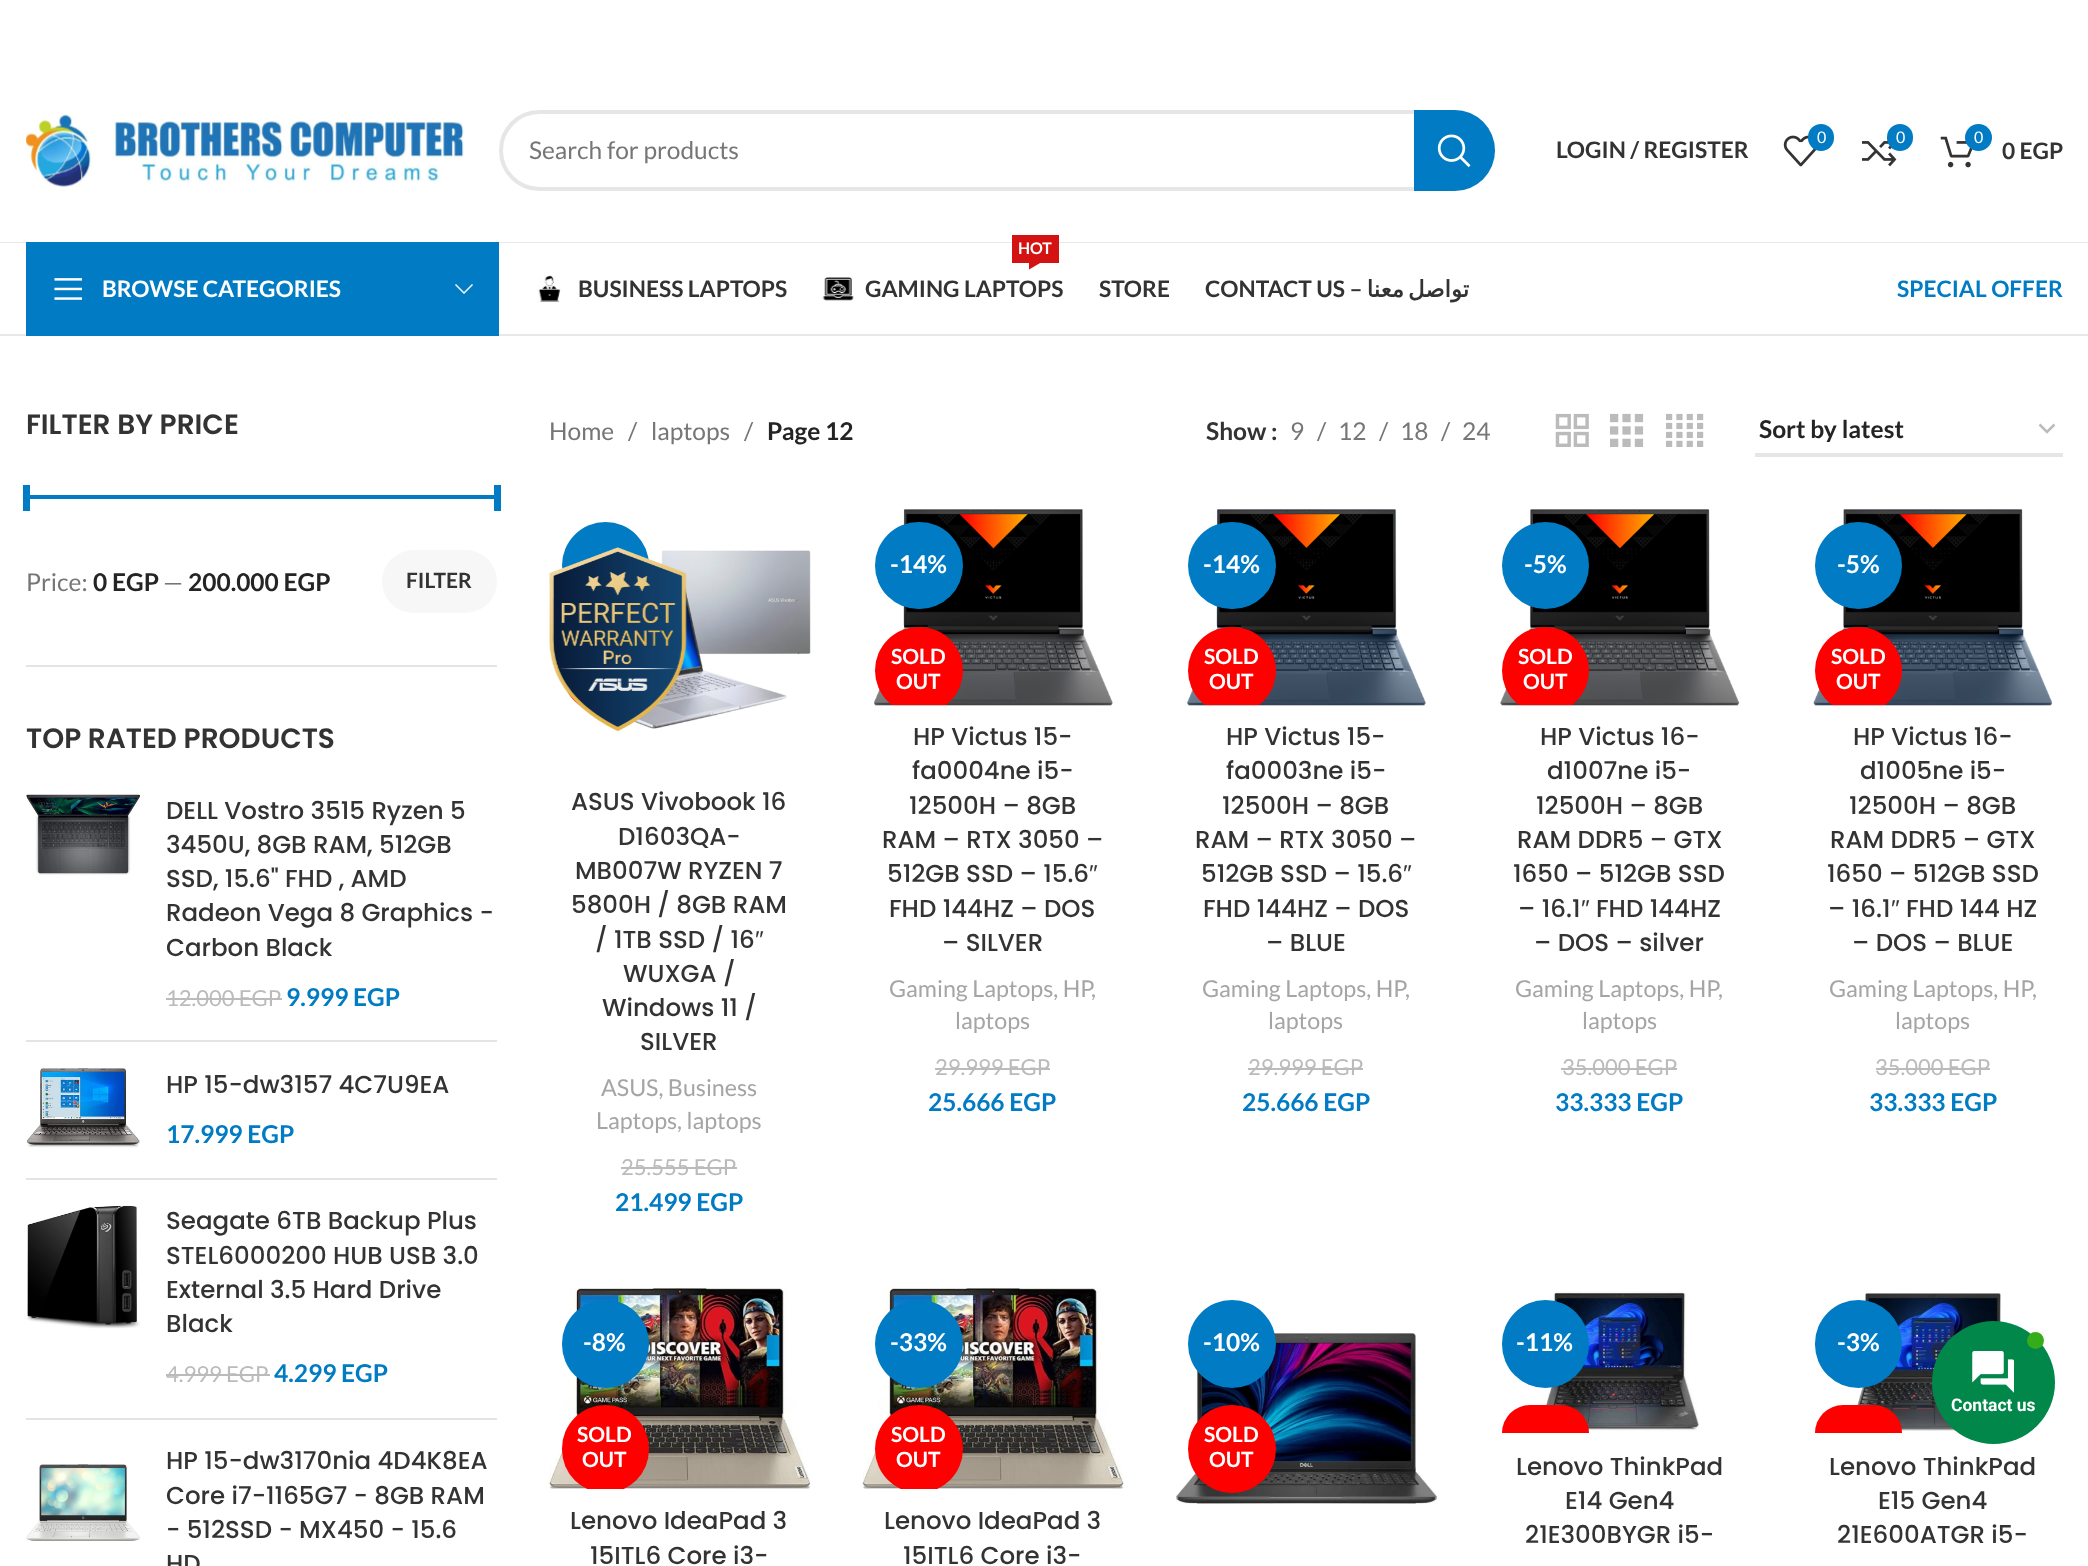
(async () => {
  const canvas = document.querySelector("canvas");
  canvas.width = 2088;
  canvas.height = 1566;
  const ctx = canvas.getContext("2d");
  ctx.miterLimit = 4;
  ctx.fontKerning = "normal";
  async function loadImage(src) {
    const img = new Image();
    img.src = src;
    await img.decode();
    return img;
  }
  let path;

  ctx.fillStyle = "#ffffff";
  ctx.fillRect(0, 0, 2088, 1566);
  ctx.fillStyle = "#e8e8e8";
  ctx.fillRect(0, 242, 2088, 1);
  ctx.drawImage(await loadImage("img/1.png"), 26, 114, 438, 73);
  ctx.beginPath();
  ctx.roundRect(501, 112, 992, 77, 38.5);
  ctx.strokeStyle = "#e6e6e6";
  ctx.lineWidth = 4;
  ctx.stroke();
  ctx.fillStyle = "#007bc4";
  ctx.beginPath();
  ctx.roundRect(1414, 110, 81, 81, [0, 40.5, 40.5, 0]);
  ctx.fill();
  ctx.drawImage(await loadImage("img/2.png"), 1437, 134, 34, 34);
  ctx.drawImage(await loadImage("img/3.png"), 1783, 135, 33, 32);
  ctx.beginPath();
  ctx.roundRect(1808, 124, 26, 27, 13);
  ctx.fill();
  ctx.drawImage(await loadImage("img/4.png"), 1862, 141, 35, 26);
  ctx.beginPath();
  ctx.roundRect(1887, 124, 26, 27, 13);
  ctx.fill();
  ctx.drawImage(await loadImage("img/5.png"), 1940, 136, 33, 32);
  ctx.beginPath();
  ctx.arc(1978.5, 137.5, 13.5, 0, Math.PI * 2);
  ctx.fill();
  ctx.fillStyle = "#e8e8e8";
  ctx.fillRect(0, 334, 2088, 2);
  ctx.fillStyle = "#007bc4";
  ctx.fillRect(26, 242, 473, 94);
  ctx.drawImage(await loadImage("img/6.png"), 54, 278, 29, 22);
  ctx.fillStyle = "#ffffff";
  path = new Path2D("M472 284L464 292L456 284L455 285L464 294L473 285Z");
  ctx.fill(path);
  ctx.drawImage(await loadImage("img/7.png"), 538, 275, 23, 27);
  ctx.fillStyle = "#d41212";
  ctx.fillRect(1012, 235, 47, 28);
  path = new Path2D("M1029 262.5H1041L1029 269.5Z");
  ctx.fill(path);
  ctx.drawImage(await loadImage("img/8.png"), 822, 277, 32, 24);
  for (const [x, y, w, h, color] of [
    [26, 665, 471, 2, "#e4e4e4"],
    [26, 495, 471, 4, "#007bc4"],
    [23, 485, 7, 26, "#007bc4"],
    [494, 485, 7, 26, "#007bc4"],
  ]) {
    ctx.fillStyle = color;
    ctx.fillRect(x, y, w, h);
  }
  ctx.fillStyle = "#f7f7f7";
  ctx.beginPath();
  ctx.roundRect(382, 550, 115, 63, 31.5);
  ctx.fill();
  ctx.fillStyle = "#e4e4e4";
  ctx.fillRect(26, 1040, 471, 2);
  ctx.drawImage(await loadImage("img/9.png"), 26, 794, 114, 81);
  ctx.fillStyle = "#bbbbbb";
  ctx.fillRect(166, 998, 116, 2);
  ctx.fillStyle = "#e4e4e4";
  ctx.fillRect(26, 1178, 471, 2);
  ctx.drawImage(await loadImage("img/10.png"), 27, 1068, 113, 80);
  ctx.fillRect(26, 1418, 471, 2);
  ctx.drawImage(await loadImage("img/11.png"), 27, 1205, 113, 124);
  ctx.fillStyle = "#bbbbbb";
  ctx.fillRect(166, 1374, 104, 2);
  ctx.drawImage(await loadImage("img/12.png"), 26, 1464, 114, 77);
  ctx.drawImage(await loadImage("img/13.png"), 1555, 413, 34, 34);
  ctx.drawImage(await loadImage("img/14.png"), 1610, 413, 34, 34);
  ctx.drawImage(await loadImage("img/15.png"), 1666, 413, 38, 34);
  path = new Path2D("M2039.5 424.5L2047 432L2054.5 424.5");
  ctx.strokeStyle = "#bbbbbb";
  ctx.lineWidth = 2.5;
  ctx.stroke(path);
  ctx.fillStyle = "#e6e6e6";
  ctx.fillRect(1755, 453, 308, 4);
  ctx.drawImage(await loadImage("img/17.png"), 549, 550, 262, 179);
  ctx.fillStyle = "#007bc4";
  ctx.beginPath();
  ctx.arc(605.5, 565.5, 43.5, 0, Math.PI * 2);
  ctx.fill();
  ctx.fillStyle = "#ff0000";
  ctx.beginPath();
  ctx.arc(605.5, 670.5, 43.5, 0, Math.PI * 2);
  ctx.fill();
  ctx.drawImage(await loadImage("img/16.png"), 549, 547, 138, 185);
  ctx.fillStyle = "#bbbbbb";
  ctx.fillRect(621, 1167, 116, 2);
  ctx.drawImage(await loadImage("img/18.png"), 874, 509, 239, 197);
  ctx.fillStyle = "#007bc4";
  ctx.beginPath();
  ctx.roundRect(875, 522, 88, 87, 43.5);
  ctx.fill();
  ctx.save();
  ctx.beginPath();
  ctx.rect(863, 509, 261, 196);
  ctx.clip();
  ctx.fillStyle = "#ff0000";
  ctx.beginPath();
  ctx.roundRect(875, 627, 88, 87, 43.5);
  ctx.fill();
  ctx.restore();
  ctx.fillStyle = "#bbbbbb";
  ctx.fillRect(935, 1068, 115, 2);
  ctx.drawImage(await loadImage("img/19.png"), 1187, 509, 239, 197);
  ctx.fillStyle = "#007bc4";
  ctx.beginPath();
  ctx.roundRect(1188, 522, 88, 87, 43.5);
  ctx.fill();
  ctx.save();
  ctx.beginPath();
  ctx.rect(1176, 509, 261, 196);
  ctx.clip();
  ctx.fillStyle = "#ff0000";
  ctx.beginPath();
  ctx.roundRect(1188, 627, 88, 87, 43.5);
  ctx.fill();
  ctx.restore();
  ctx.fillStyle = "#bbbbbb";
  ctx.fillRect(1248, 1068, 115, 2);
  ctx.drawImage(await loadImage("img/20.png"), 1500, 509, 240, 197);
  ctx.fillStyle = "#007bc4";
  ctx.beginPath();
  ctx.arc(1545.5, 565.5, 43.5, 0, Math.PI * 2);
  ctx.fill();
  ctx.save();
  ctx.beginPath();
  ctx.rect(1489, 509, 261, 196);
  ctx.clip();
  ctx.fillStyle = "#ff0000";
  ctx.beginPath();
  ctx.arc(1545.5, 670.5, 43.5, 0, Math.PI * 2);
  ctx.fill();
  ctx.restore();
  ctx.fillStyle = "#bbbbbb";
  ctx.fillRect(1561, 1068, 116, 2);
  ctx.drawImage(await loadImage("img/21.png"), 1813, 509, 239, 197);
  ctx.fillStyle = "#007bc4";
  ctx.beginPath();
  ctx.arc(1858.5, 565.5, 43.5, 0, Math.PI * 2);
  ctx.fill();
  ctx.save();
  ctx.beginPath();
  ctx.rect(1803, 509, 260, 196);
  ctx.clip();
  ctx.fillStyle = "#ff0000";
  ctx.beginPath();
  ctx.arc(1858.5, 670.5, 43.5, 0, Math.PI * 2);
  ctx.fill();
  ctx.restore();
  ctx.fillStyle = "#bbbbbb";
  ctx.fillRect(1876, 1068, 114, 2);
  ctx.drawImage(await loadImage("img/22.png"), 549, 1288, 262, 201);
  ctx.fillStyle = "#007bc4";
  ctx.beginPath();
  ctx.roundRect(562, 1300, 87, 88, 43.5);
  ctx.fill();
  ctx.save();
  ctx.beginPath();
  ctx.rect(550, 1288, 260, 201);
  ctx.clip();
  ctx.fillStyle = "#ff0000";
  ctx.beginPath();
  ctx.roundRect(562, 1405, 87, 88, 43.5);
  ctx.fill();
  ctx.restore();
  ctx.drawImage(await loadImage("img/23.png"), 862, 1288, 262, 201);
  ctx.beginPath();
  ctx.arc(919, 1344, 44, 0, Math.PI * 2);
  ctx.fill();
  ctx.save();
  ctx.beginPath();
  ctx.rect(863, 1288, 261, 201);
  ctx.clip();
  ctx.fillStyle = "#ff0000";
  ctx.beginPath();
  ctx.arc(919, 1449, 44, 0, Math.PI * 2);
  ctx.fill();
  ctx.restore();
  ctx.drawImage(await loadImage("img/24.png"), 1176, 1333, 261, 171);
  ctx.beginPath();
  ctx.arc(1232, 1344, 44, 0, Math.PI * 2);
  ctx.fill();
  ctx.fillStyle = "#ff0000";
  ctx.beginPath();
  ctx.arc(1232, 1449, 44, 0, Math.PI * 2);
  ctx.fill();
  ctx.drawImage(await loadImage("img/25.png"), 1539, 1291, 161, 141);
  ctx.fillStyle = "#007bc4";
  ctx.beginPath();
  ctx.roundRect(1502, 1300, 87, 88, 43.5);
  ctx.fill();
  ctx.fillStyle = "#ff0000";
  ctx.beginPath();
  ctx.roundRect(1502, 1405, 87, 28, [43.5, 43.5, 0, 0]);
  ctx.fill();
  ctx.drawImage(await loadImage("img/26.png"), 1857, 1293, 144, 138);
  ctx.fillStyle = "#007bc4";
  ctx.beginPath();
  ctx.roundRect(1815, 1300, 87, 88, 43.5);
  ctx.fill();
  ctx.fillStyle = "#ff0000";
  ctx.beginPath();
  ctx.roundRect(1815, 1405, 87, 28, [43.5, 43.5, 0, 0]);
  ctx.fill();
  ctx.fillStyle = "#008749";
  ctx.beginPath();
  ctx.arc(1993.5, 1382.5, 61.5, 0, Math.PI * 2);
  ctx.fill();
  ctx.fillStyle = "#35ac19";
  ctx.beginPath();
  ctx.arc(2035.5, 1340.5, 8.5, 0, Math.PI * 2);
  ctx.fill();
  ctx.drawImage(await loadImage("img/27.png"), 1972, 1351, 42, 42);
  ctx.font = "24.5px Lato";
  ctx.fillStyle = "#767676";
  ctx.fillText("Search for products", 529, 159);
  ctx.font = "bold 22.75px Lato";
  ctx.fillStyle = "#333333";
  ctx.fillText("LOGIN / REGISTER", 1556, 158);
  ctx.font = "16px Lato";
  ctx.fillStyle = "#ffffff";
  for (const [text, x, y] of [
    ["0", 1817, 143],
    ["0", 1896, 143],
    ["0", 1974, 143],
  ]) {
    ctx.fillText(text, x, y);
  }
  ctx.font = "bold 22.75px Lato";
  ctx.fillStyle = "#333333";
  ctx.fillText("0 EGP", 2002, 159);
  ctx.fillStyle = "#ffffff";
  ctx.fillText("BROWSE CATEGORIES", 102, 297);
  ctx.fillStyle = "#333333";
  ctx.fillText("BUSINESS LAPTOPS", 578, 297);
  ctx.font = "bold 16px Lato";
  ctx.fillStyle = "#ffffff";
  ctx.fillText("HOT", 1018, 254);
  ctx.font = "bold 22.75px Lato";
  ctx.fillStyle = "#333333";
  for (const [text, x, y] of [
    ["GAMING LAPTOPS", 865, 297],
    ["STORE", 1099, 297],
    ["CONTACT US –", 1205, 297],
  ]) {
    ctx.fillText(text, x, y);
  }
  ctx.wordSpacing = "-3px";
  ctx.direction = "rtl";
  ctx.font = "bold 22.75px DejaVu Sans";
  ctx.fillText("تواصل معنا", 1469, 297);
  ctx.wordSpacing = "0px";
  ctx.direction = "ltr";
  ctx.font = "bold 22.75px Lato";
  ctx.fillStyle = "#007bc4";
  ctx.fillText("SPECIAL OFFER", 1897, 297);
  ctx.font = "600 28px Poppins";
  ctx.fillStyle = "#333333";
  ctx.fillText("FILTER BY PRICE", 26, 434);
  ctx.font = "24.5px Lato";
  ctx.fillStyle = "#767676";
  ctx.fillText("Price:", 26, 591);
  ctx.font = "bold 24.5px Lato";
  ctx.fillStyle = "#242424";
  ctx.fillText("0 EGP", 93, 591);
  ctx.font = "24.5px Lato";
  ctx.fillStyle = "#767676";
  ctx.fillText("—", 163, 591);
  ctx.font = "bold 24.5px Lato";
  ctx.fillStyle = "#242424";
  ctx.fillText("200.000 EGP", 188, 591);
  ctx.font = "bold 21px Lato";
  ctx.fillStyle = "#333333";
  ctx.fillText("FILTER", 406, 588);
  ctx.font = "600 28px Poppins";
  ctx.fillText("TOP RATED PRODUCTS", 26, 748);
  ctx.font = "500 24.5px Poppins";
  for (const [text, x, y] of [
    ["DELL Vostro 3515 Ryzen 5", 166, 819],
    ["3450U, 8GB RAM, 512GB", 166, 853],
    ["SSD, 15.6\" FHD , AMD", 166, 887],
    ["Radeon Vega 8 Graphics -", 166, 921],
    ["Carbon Black", 166, 956],
  ]) {
    ctx.fillText(text, x, y);
  }
  ctx.font = "22px Lato";
  ctx.fillStyle = "#bbbbbb";
  ctx.fillText("12.000 EGP", 166, 1006);
  ctx.font = "bold 24.5px Lato";
  ctx.fillStyle = "#007bc4";
  ctx.fillText("9.999 EGP", 286, 1006);
  ctx.font = "500 24.5px Poppins";
  ctx.fillStyle = "#333333";
  ctx.fillText("HP 15-dw3157 4C7U9EA", 166, 1093);
  ctx.font = "bold 24.5px Lato";
  ctx.fillStyle = "#007bc4";
  ctx.fillText("17.999 EGP", 166, 1143);
  ctx.font = "500 24.5px Poppins";
  ctx.fillStyle = "#333333";
  for (const [text, x, y] of [
    ["Seagate 6TB Backup Plus", 166, 1229],
    ["STEL6000200 HUB USB 3.0", 166, 1264],
    ["External 3.5 Hard Drive", 166, 1298],
    ["Black", 166, 1332],
  ]) {
    ctx.fillText(text, x, y);
  }
  ctx.font = "22px Lato";
  ctx.fillStyle = "#bbbbbb";
  ctx.fillText("4.999 EGP", 166, 1382);
  ctx.font = "bold 24.5px Lato";
  ctx.fillStyle = "#007bc4";
  ctx.fillText("4.299 EGP", 274, 1382);
  ctx.font = "500 24.5px Poppins";
  ctx.fillStyle = "#333333";
  for (const [text, x, y] of [
    ["HP 15-dw3170nia 4D4K8EA", 166, 1469],
    ["Core i7-1165G7 - 8GB RAM", 166, 1504],
    ["- 512SSD - MX450 - 15.6", 166, 1538],
    ["HD", 166, 1572],
  ]) {
    ctx.fillText(text, x, y);
  }
  ctx.font = "24.5px Lato";
  ctx.fillStyle = "#767676";
  for (const [text, x, y] of [
    ["Home", 549, 440],
    ["/", 628, 440],
    ["laptops", 651, 440],
    ["/", 744, 440],
  ]) {
    ctx.fillText(text, x, y);
  }
  ctx.font = "bold 24.5px Lato";
  ctx.fillStyle = "#242424";
  ctx.fillText("Page 12", 767, 440);
  ctx.fillStyle = "#333333";
  ctx.fillText("Show :", 1206, 440);
  ctx.font = "24.5px Lato";
  ctx.fillStyle = "#767676";
  for (const [text, x, y] of [
    ["9", 1290, 440],
    ["/", 1317, 440],
    ["12", 1338, 440],
    ["/", 1379, 440],
    ["18", 1400, 440],
    ["/", 1441, 440],
    ["24", 1462, 440],
  ]) {
    ctx.fillText(text, x, y);
  }
  ctx.font = "bold 24.5px Lato";
  ctx.fillStyle = "#242424";
  ctx.fillText("Sort by latest", 1759, 438);
  ctx.font = "500 24.5px Poppins";
  ctx.fillStyle = "#333333";
  for (const [text, x, y] of [
    ["ASUS Vivobook 16", 571, 810],
    ["D1603QA-", 618, 845],
    ["MB007W RYZEN 7", 575, 879],
    ["5800H / 8GB RAM", 571, 913],
    ["/ 1TB SSD / 16", 595, 948],
  ]) {
    ctx.fillText(text, x, y);
  }
  ctx.font = "24.5px Liberation Sans";
  ctx.fillText("″", 755, 948);
  ctx.font = "500 24.5px Poppins";
  for (const [text, x, y] of [
    ["WUXGA /", 623, 982],
    ["Windows 11 /", 602, 1016],
    ["SILVER", 640, 1050],
  ]) {
    ctx.fillText(text, x, y);
  }
  ctx.font = "23.25px Lato";
  ctx.fillStyle = "#a5a5a5";
  ctx.fillText("ASUS, Business", 601, 1096);
  ctx.fillText("Laptops, laptops", 596, 1129);
  ctx.font = "22px Lato";
  ctx.fillStyle = "#bbbbbb";
  ctx.fillText("25.555 EGP", 621, 1175);
  ctx.font = "bold 24.5px Lato";
  ctx.fillStyle = "#007bc4";
  ctx.fillText("21.499 EGP", 615, 1211);
  ctx.fillStyle = "#ffffff";
  ctx.fillText("-14%", 890, 573);
  ctx.font = "bold 21px Lato";
  ctx.fillText("SOLD", 891, 664);
  ctx.fillText("OUT", 896, 689);
  ctx.font = "500 24.5px Poppins";
  ctx.fillStyle = "#333333";
  for (const [text, x, y] of [
    ["HP Victus 15-", 913, 745],
    ["fa0004ne i5-", 912, 779],
    ["12500H – 8GB", 909, 814],
    ["RAM – RTX 3050 –", 882, 848],
    ["512GB SSD – 15.6", 887, 882],
  ]) {
    ctx.fillText(text, x, y);
  }
  ctx.font = "24.5px Liberation Sans";
  ctx.fillText("″", 1089, 882);
  ctx.font = "500 24.5px Poppins";
  ctx.fillText("FHD 144HZ – DOS", 889, 917);
  ctx.fillText("– SILVER", 942, 951);
  ctx.font = "23.25px Lato";
  ctx.fillStyle = "#a5a5a5";
  for (const [text, x, y] of [
    ["Gaming Laptops, HP", 889, 997],
    [",", 1091, 997],
    ["laptops", 955, 1029],
  ]) {
    ctx.fillText(text, x, y);
  }
  ctx.font = "22px Lato";
  ctx.fillStyle = "#bbbbbb";
  ctx.fillText("29.999 EGP", 935, 1075);
  ctx.font = "bold 24.5px Lato";
  ctx.fillStyle = "#007bc4";
  ctx.fillText("25.666 EGP", 928, 1111);
  ctx.fillStyle = "#ffffff";
  ctx.fillText("-14%", 1203, 573);
  ctx.font = "bold 21px Lato";
  ctx.fillText("SOLD", 1204, 664);
  ctx.fillText("OUT", 1209, 689);
  ctx.font = "500 24.5px Poppins";
  ctx.fillStyle = "#333333";
  for (const [text, x, y] of [
    ["HP Victus 15-", 1226, 745],
    ["fa0003ne i5-", 1226, 779],
    ["12500H – 8GB", 1222, 814],
    ["RAM – RTX 3050 –", 1195, 848],
    ["512GB SSD – 15.6", 1201, 882],
  ]) {
    ctx.fillText(text, x, y);
  }
  ctx.font = "24.5px Liberation Sans";
  ctx.fillText("″", 1403, 882);
  ctx.font = "500 24.5px Poppins";
  ctx.fillText("FHD 144HZ – DOS", 1203, 917);
  ctx.fillText("– BLUE", 1266, 951);
  ctx.font = "23.25px Lato";
  ctx.fillStyle = "#a5a5a5";
  for (const [text, x, y] of [
    ["Gaming Laptops, HP", 1202, 997],
    [",", 1405, 997],
    ["laptops", 1268, 1029],
  ]) {
    ctx.fillText(text, x, y);
  }
  ctx.font = "22px Lato";
  ctx.fillStyle = "#bbbbbb";
  ctx.fillText("29.999 EGP", 1248, 1075);
  ctx.font = "bold 24.5px Lato";
  ctx.fillStyle = "#007bc4";
  ctx.fillText("25.666 EGP", 1242, 1111);
  ctx.fillStyle = "#ffffff";
  ctx.fillText("-5%", 1524, 573);
  ctx.font = "bold 21px Lato";
  ctx.fillText("SOLD", 1518, 664);
  ctx.fillText("OUT", 1523, 689);
  ctx.font = "500 24.5px Poppins";
  ctx.fillStyle = "#333333";
  for (const [text, x, y] of [
    ["HP Victus 16-", 1540, 745],
    ["d1007ne i5-", 1547, 779],
    ["12500H – 8GB", 1536, 814],
    ["RAM DDR5 – GTX", 1517, 848],
    ["1650 – 512GB SSD", 1513, 882],
    ["– 16.1", 1518, 917],
  ]) {
    ctx.fillText(text, x, y);
  }
  ctx.font = "24.5px Liberation Sans";
  ctx.fillText("″", 1581, 917);
  ctx.font = "500 24.5px Poppins";
  ctx.fillText("FHD 144HZ", 1596, 917);
  ctx.fillText("– DOS – silver", 1534, 951);
  ctx.font = "23.25px Lato";
  ctx.fillStyle = "#a5a5a5";
  for (const [text, x, y] of [
    ["Gaming Laptops, HP", 1515, 997],
    [",", 1718, 997],
    ["laptops", 1582, 1029],
  ]) {
    ctx.fillText(text, x, y);
  }
  ctx.font = "22px Lato";
  ctx.fillStyle = "#bbbbbb";
  ctx.fillText("35.000 EGP", 1562, 1075);
  ctx.font = "bold 24.5px Lato";
  ctx.fillStyle = "#007bc4";
  ctx.fillText("33.333 EGP", 1555, 1111);
  ctx.fillStyle = "#ffffff";
  ctx.fillText("-5%", 1837, 573);
  ctx.font = "bold 21px Lato";
  ctx.fillText("SOLD", 1831, 664);
  ctx.fillText("OUT", 1836, 689);
  ctx.font = "500 24.5px Poppins";
  ctx.fillStyle = "#333333";
  for (const [text, x, y] of [
    ["HP Victus 16-", 1853, 745],
    ["d1005ne i5-", 1860, 779],
    ["12500H – 8GB", 1849, 814],
    ["RAM DDR5 – GTX", 1830, 848],
    ["1650 – 512GB SSD", 1827, 882],
    ["– 16.1", 1828, 917],
  ]) {
    ctx.fillText(text, x, y);
  }
  ctx.font = "24.5px Liberation Sans";
  ctx.fillText("″", 1891, 917);
  ctx.font = "500 24.5px Poppins";
  ctx.fillText("FHD 144 HZ", 1906, 917);
  ctx.fillText("– DOS – BLUE", 1852, 951);
  ctx.font = "23.25px Lato";
  ctx.fillStyle = "#a5a5a5";
  for (const [text, x, y] of [
    ["Gaming Laptops, HP", 1829, 997],
    [",", 2032, 997],
    ["laptops", 1895, 1029],
  ]) {
    ctx.fillText(text, x, y);
  }
  ctx.font = "22px Lato";
  ctx.fillStyle = "#bbbbbb";
  ctx.fillText("35.000 EGP", 1875, 1075);
  ctx.font = "bold 24.5px Lato";
  ctx.fillStyle = "#007bc4";
  ctx.fillText("33.333 EGP", 1869, 1111);
  ctx.fillStyle = "#ffffff";
  ctx.fillText("-8%", 583, 1351);
  ctx.font = "bold 21px Lato";
  ctx.fillText("SOLD", 577, 1442);
  ctx.fillText("OUT", 582, 1467);
  ctx.font = "500 24.5px Poppins";
  ctx.fillStyle = "#333333";
  ctx.fillText("Lenovo IdeaPad 3", 570, 1529);
  ctx.fillText("15ITL6 Core i3-", 590, 1564);
  ctx.font = "bold 24.5px Lato";
  ctx.fillStyle = "#ffffff";
  ctx.fillText("-33%", 890, 1351);
  ctx.font = "bold 21px Lato";
  ctx.fillText("SOLD", 891, 1442);
  ctx.fillText("OUT", 896, 1467);
  ctx.font = "500 24.5px Poppins";
  ctx.fillStyle = "#333333";
  ctx.fillText("Lenovo IdeaPad 3", 884, 1529);
  ctx.fillText("15ITL6 Core i3-", 903, 1564);
  ctx.font = "bold 24.5px Lato";
  ctx.fillStyle = "#ffffff";
  ctx.fillText("-10%", 1203, 1351);
  ctx.font = "bold 21px Lato";
  ctx.fillText("SOLD", 1204, 1442);
  ctx.fillText("OUT", 1209, 1467);
  ctx.font = "bold 24.5px Lato";
  ctx.fillText("-11%", 1516, 1351);
  ctx.font = "500 24.5px Poppins";
  ctx.fillStyle = "#333333";
  for (const [text, x, y] of [
    ["Lenovo ThinkPad", 1516, 1475],
    ["E14 Gen4", 1565, 1509],
    ["21E300BYGR i5-", 1525, 1543],
  ]) {
    ctx.fillText(text, x, y);
  }
  ctx.font = "bold 24.5px Lato";
  ctx.fillStyle = "#ffffff";
  ctx.fillText("-3%", 1837, 1351);
  ctx.font = "500 24.5px Poppins";
  ctx.fillStyle = "#333333";
  for (const [text, x, y] of [
    ["Lenovo ThinkPad", 1829, 1475],
    ["E15 Gen4", 1878, 1509],
    ["21E600ATGR i5-", 1837, 1543],
  ]) {
    ctx.fillText(text, x, y);
  }
  ctx.font = "bold 17.5px Roboto";
  ctx.fillStyle = "#ffffff";
  ctx.fillText("Contact us", 1951, 1411);
})();
